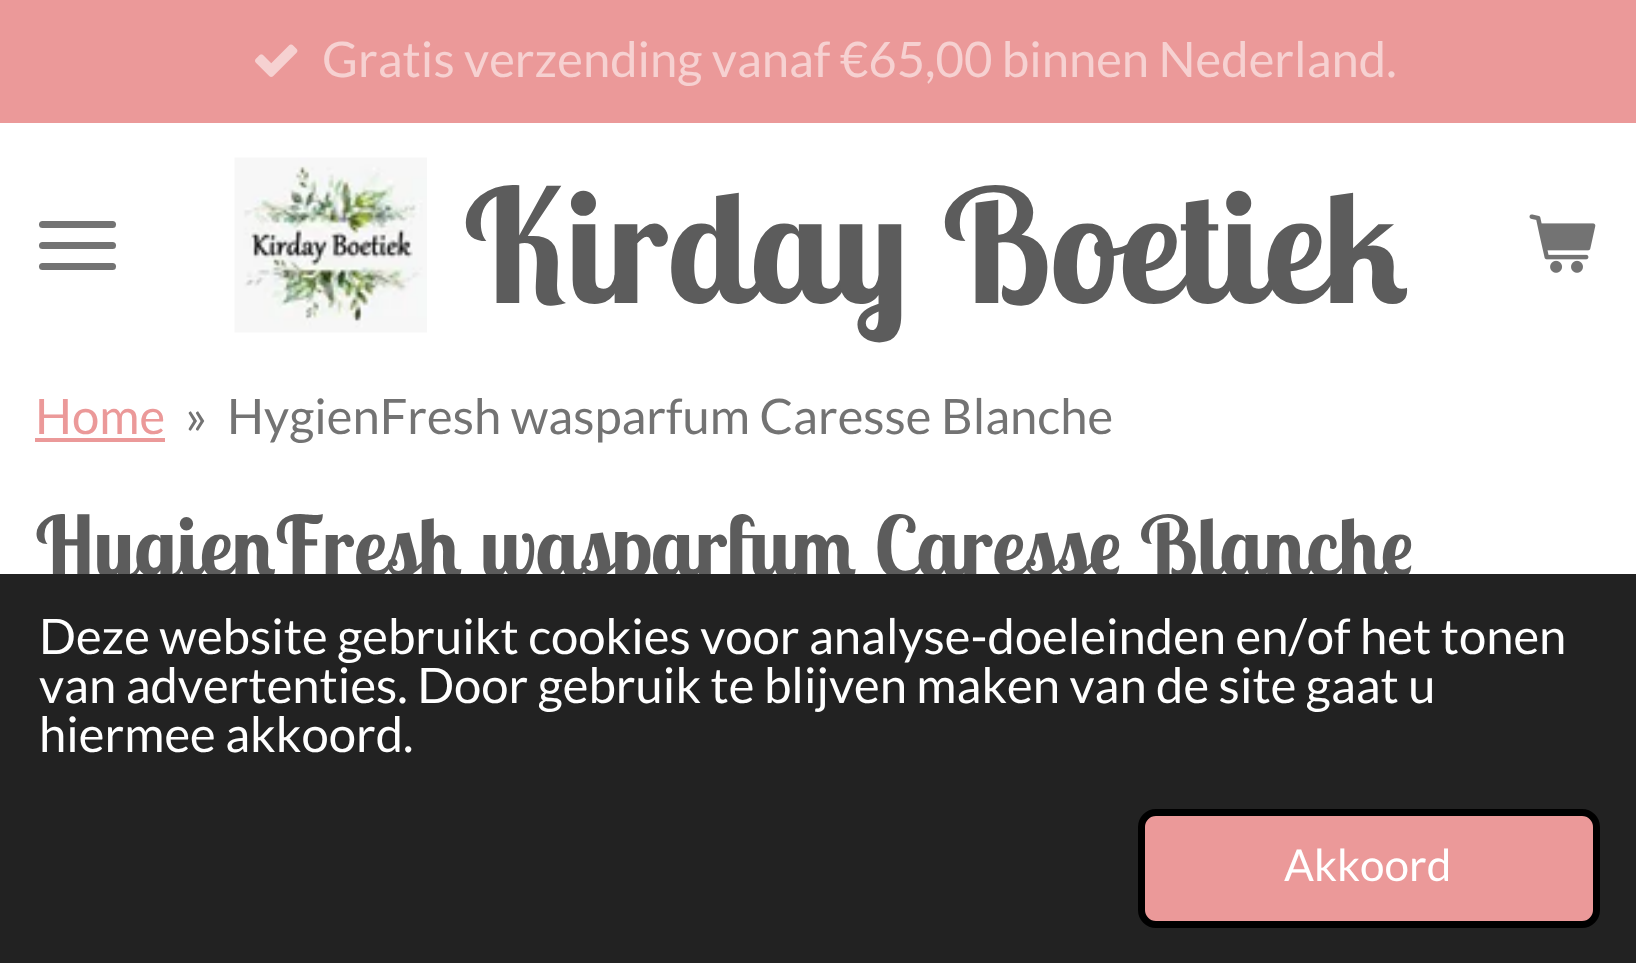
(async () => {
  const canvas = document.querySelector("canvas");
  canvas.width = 1636;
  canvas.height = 963;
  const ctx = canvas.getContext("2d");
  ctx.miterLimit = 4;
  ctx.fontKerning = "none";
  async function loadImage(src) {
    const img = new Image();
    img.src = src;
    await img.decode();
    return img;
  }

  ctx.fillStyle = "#ffffff";
  ctx.fillRect(0, 0, 1636, 963);
  ctx.fillStyle = "#eb9999";
  ctx.fillRect(0, 0, 1636, 123);
  ctx.drawImage(await loadImage("img/1.png"), 255, 44, 43, 33);
  ctx.fillStyle = "#737373";
  ctx.beginPath();
  ctx.roundRect(39, 242, 77, 7, 3.5);
  ctx.fill();
  ctx.beginPath();
  ctx.roundRect(39, 221, 77, 7, 3.5);
  ctx.fill();
  ctx.beginPath();
  ctx.roundRect(39, 263, 77, 7, 3.5);
  ctx.fill();
  ctx.drawImage(await loadImage("img/2.png"), 234, 157, 193, 176);
  ctx.drawImage(await loadImage("img/3.png"), 1529, 214, 67, 59);
  ctx.fillStyle = "#eb9999";
  ctx.fillRect(35, 438, 130, 4);
  ctx.font = "49px Lato";
  ctx.fillStyle = "#f6d1d1";
  ctx.fillText("Gratis verzending vanaf €65,00 binnen Nederland.", 322, 77);
  ctx.font = "bold 157.5px Lobster Two";
  ctx.fillStyle = "#5c5c5c";
  ctx.fillText("Kirday Boetiek", 463, 303);
  ctx.font = "49px Lato";
  ctx.fillStyle = "#eb9999";
  ctx.fillText("Home", 35, 434);
  ctx.fillStyle = "#737373";
  ctx.fillText("»", 185, 434);
  ctx.fillText("HygienFresh wasparfum Caresse Blanche", 227, 434);
  ctx.font = "bold 84px Lobster Two";
  ctx.fillStyle = "#5c5c5c";
  ctx.fillText("HygienFresh wasparfum Caresse Blanche", 35, 577);
  ctx.fillStyle = "#222222";
  ctx.fillRect(0, 574, 1636, 389);
  ctx.font = "49px Lato";
  ctx.fillStyle = "#ffffff";
  for (const [text, x, y] of [
    ["Deze website gebruikt cookies voor analyse-doeleinden en/of het tonen", 39, 654],
    ["van advertenties. Door gebruik te blijven maken van de site gaat u", 39, 703],
    ["hiermee akkoord.", 39, 752],
  ]) {
    ctx.fillText(text, x, y);
  }
  ctx.fillStyle = "#eb9999";
  ctx.beginPath();
  ctx.roundRect(1141.5, 812.5, 455, 112, 14.5);
  ctx.fill();
  ctx.strokeStyle = "#000000";
  ctx.lineWidth = 7;
  ctx.stroke();
  ctx.font = "44px Lato";
  ctx.fillStyle = "#ffffff";
  ctx.fillText("Akkoord", 1284, 881);
})();
